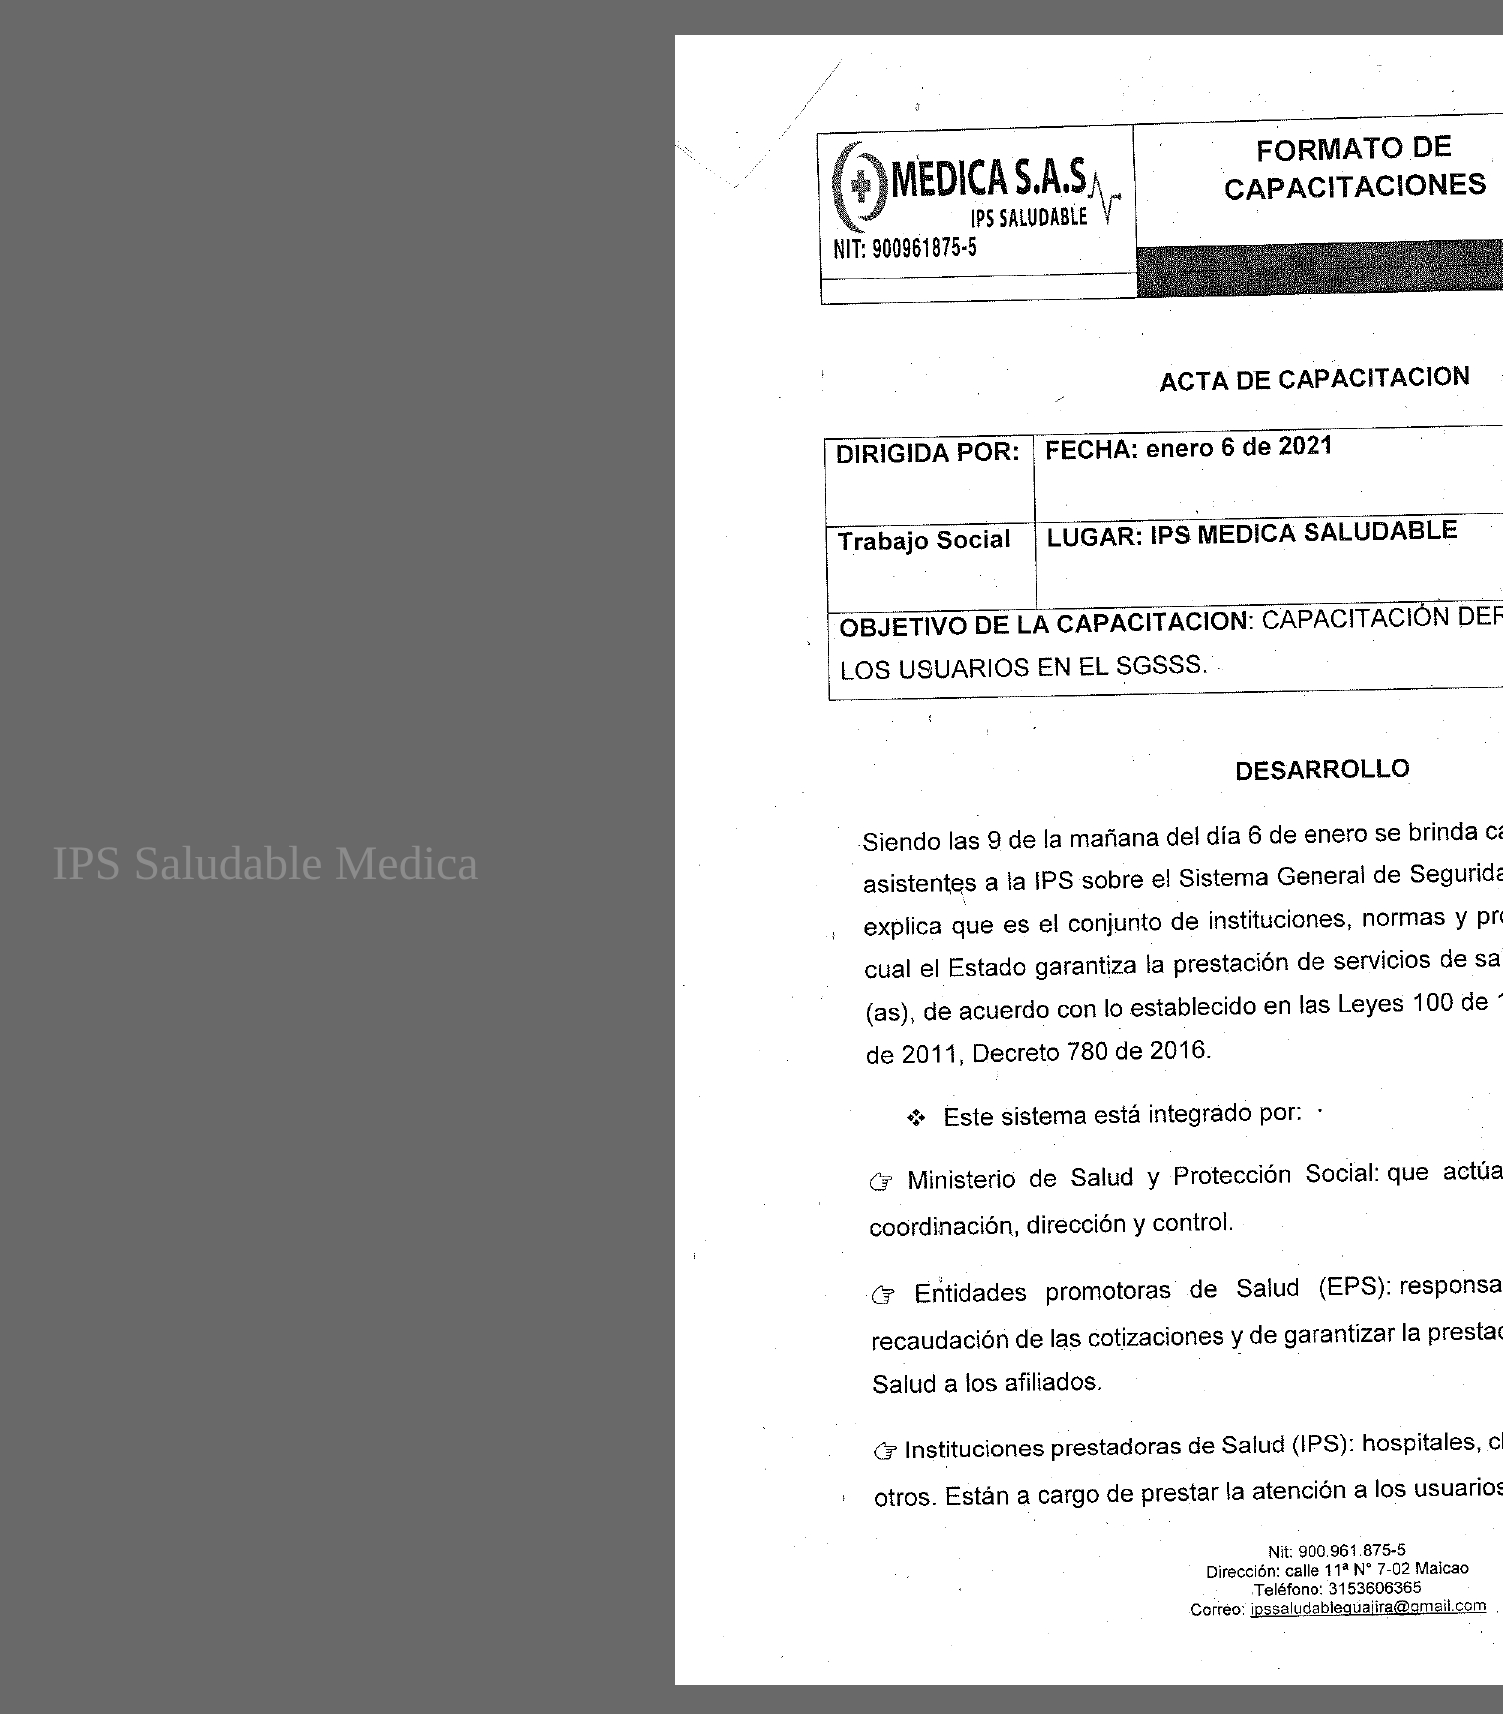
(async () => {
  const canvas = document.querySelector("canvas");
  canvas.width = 1503;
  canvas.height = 1714;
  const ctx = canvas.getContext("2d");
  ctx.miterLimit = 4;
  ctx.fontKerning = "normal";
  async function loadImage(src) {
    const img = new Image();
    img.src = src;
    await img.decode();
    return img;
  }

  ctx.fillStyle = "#696969";
  ctx.fillRect(0, 0, 1503, 1714);
  ctx.drawImage(await loadImage("img/1.png"), 675, 35, 828, 1650);
  ctx.font = "48px Liberation Serif";
  ctx.fillStyle = "#8c8c8c";
  ctx.fillText("IPS Saludable Medica", 52, 879);
})();
